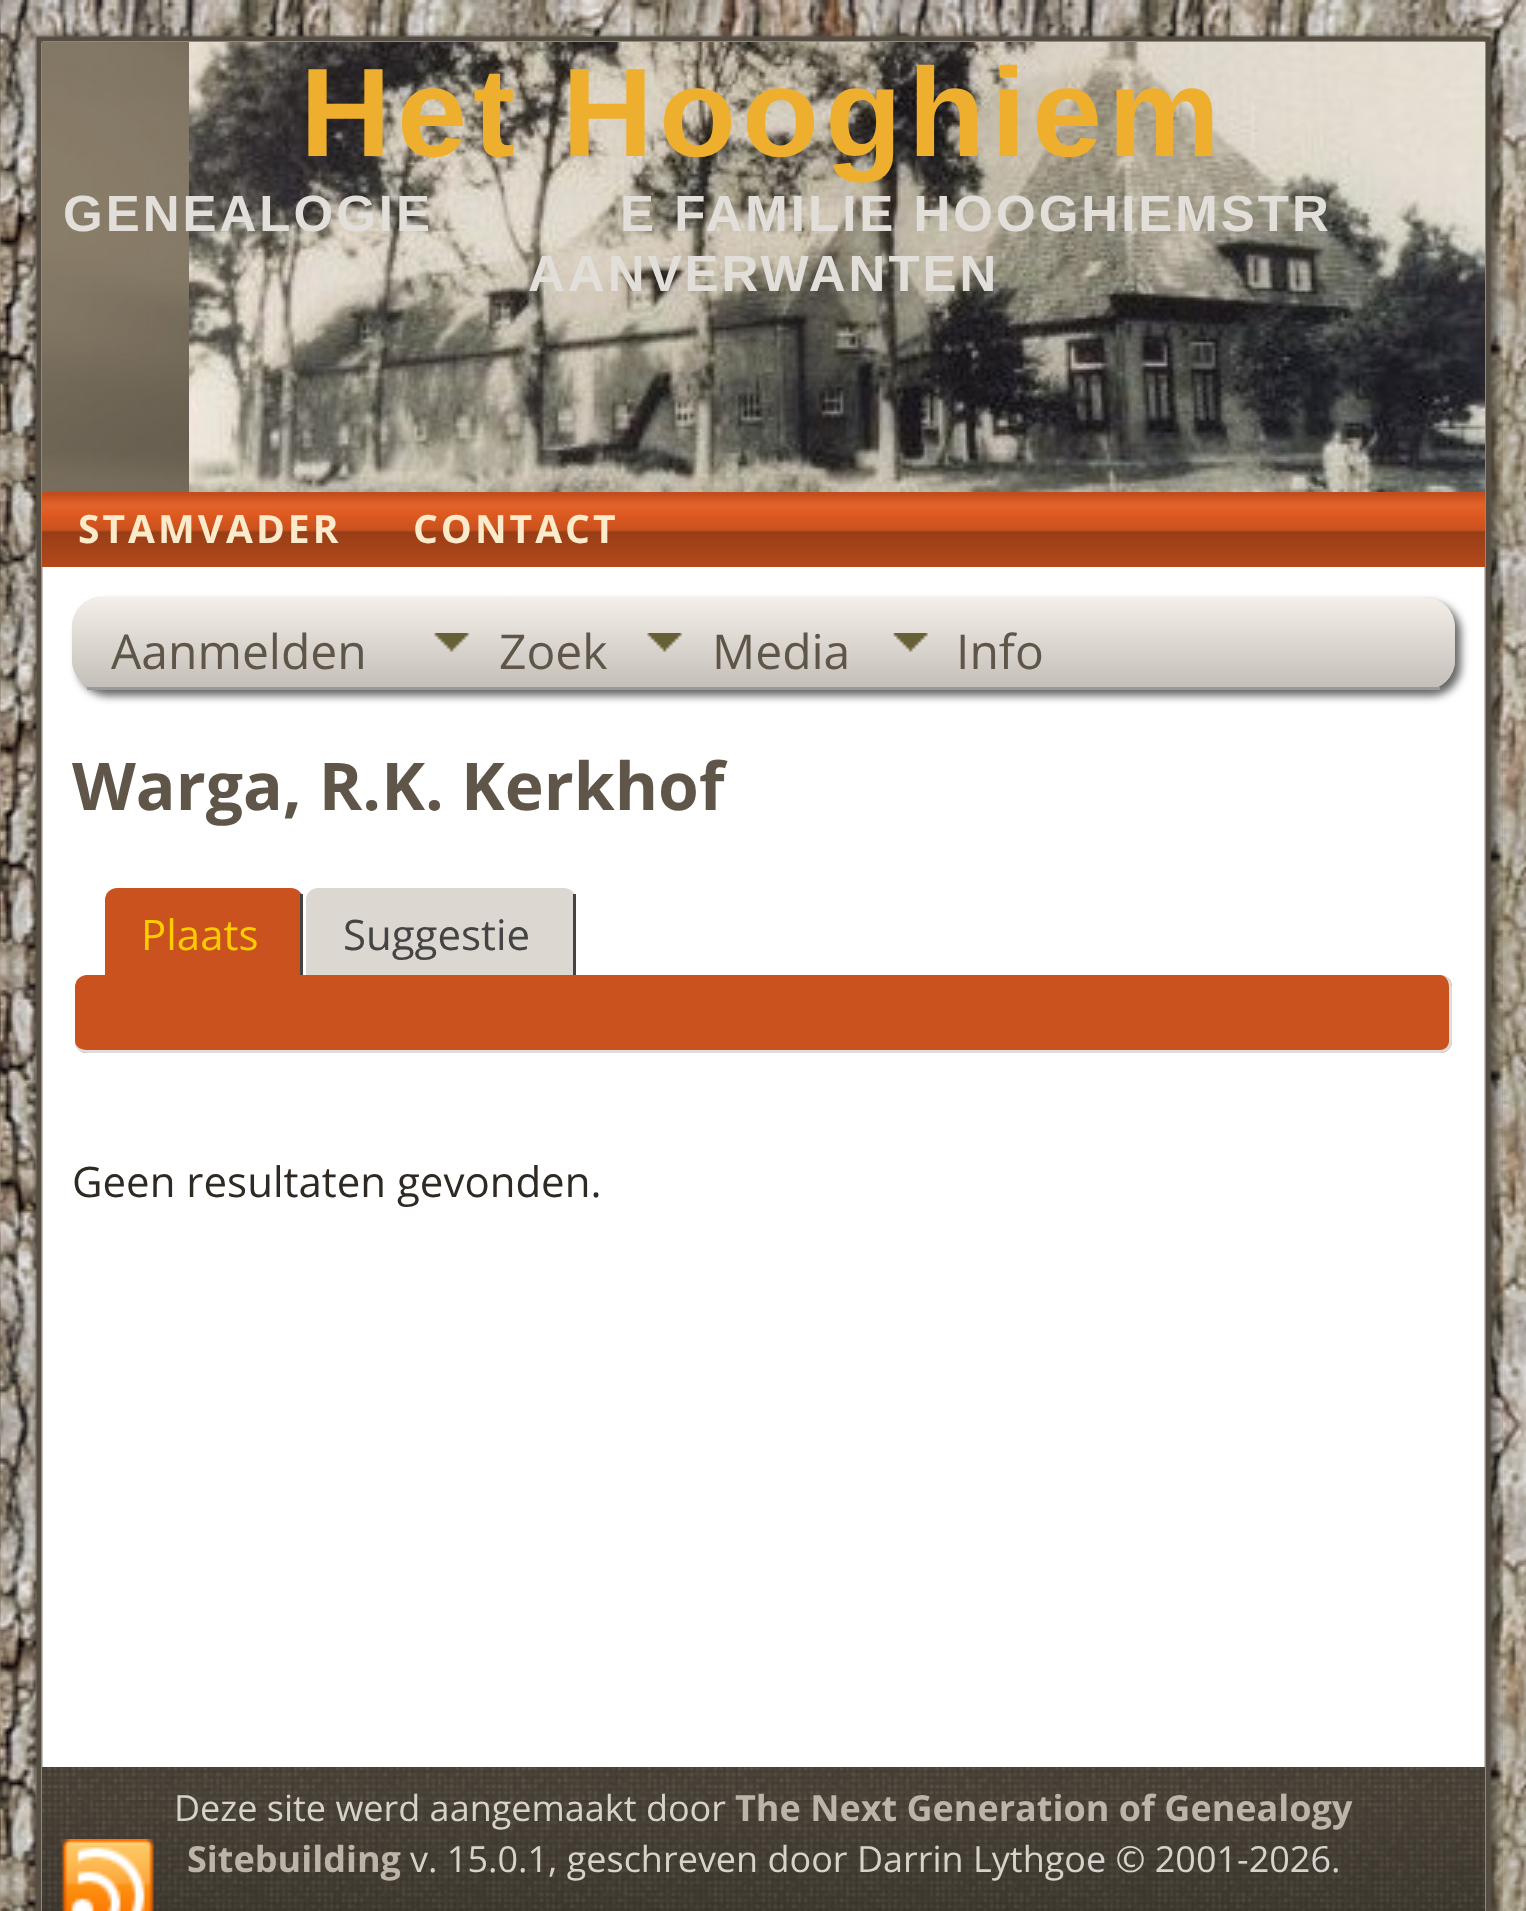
(async () => {
  const canvas = document.querySelector("canvas");
  canvas.width = 1526;
  canvas.height = 1911;
  const ctx = canvas.getContext("2d");
  ctx.miterLimit = 4;
  ctx.fontKerning = "normal";
  async function loadImage(src) {
    const img = new Image();
    img.src = src;
    await img.decode();
    return img;
  }
  let gradient, path;

  ctx.fillStyle = "#ffffff";
  ctx.fillRect(0, 0, 1526, 1911);
  ctx.drawImage(await loadImage("img/1.png"), 0, 0, 1526, 1911);
  ctx.drawImage(await loadImage("img/2.png"), 32, 32, 46, 46);
  ctx.drawImage(await loadImage("img/3.png"), 78, 32, 1371, 10);
  ctx.drawImage(await loadImage("img/4.png"), 1449, 32, 54, 46);
  ctx.drawImage(await loadImage("img/5.png"), 32, 78, 46, 1833);
  ctx.drawImage(await loadImage("img/6.png"), 42, 42, 147, 450);
  ctx.drawImage(await loadImage("img/15.png"), 1449, 78, 54, 1833);
  ctx.drawImage(await loadImage("img/7.png"), 189, 42, 1296, 450);
  ctx.drawImage(await loadImage("img/8.png"), 42, 492, 1443, 75);
  ctx.fillRect(78, 567, 1371, 1200);
  ctx.fillStyle = "#666666";
  ctx.filter = "blur(4.5px)";
  ctx.beginPath();
  ctx.roundRect(78, 603, 1383, 93, 30);
  ctx.fill();
  ctx.filter = "none";
  ctx.fillStyle = "#dcd7d1";
  ctx.beginPath();
  ctx.roundRect(72, 597, 1383, 93, 30);
  ctx.fill();
  ctx.save();
  ctx.beginPath();
  ctx.roundRect(72, 597, 1383, 93, 30);
  ctx.clip();
  gradient = ctx.createLinearGradient(764, 597, 764, 687);
  gradient.addColorStop(0, "#f5efe9");
  gradient.addColorStop(1, "#c5bfb9");
  ctx.fillStyle = gradient;
  ctx.beginPath();
  ctx.roundRect(72, 597, 1383, 90, [30, 30, 0, 0]);
  ctx.fill();
  ctx.restore();
  ctx.fillStyle = "#999999";
  ctx.fillRect(87, 687, 1353, 3);
  ctx.drawImage(await loadImage("img/9.png"), 408, 597, 213, 90);
  ctx.drawImage(await loadImage("img/10.png"), 621, 597, 246, 90);
  ctx.drawImage(await loadImage("img/11.png"), 867, 597, 192, 90);
  ctx.fillStyle = "#ca521e";
  ctx.beginPath();
  ctx.roundRect(105, 888, 198, 87, [12, 12, 0, 0]);
  ctx.fill();
  ctx.fillStyle = "#444444";
  ctx.fillRect(300, 894, 3, 81);
  ctx.fillStyle = "#dcd7d1";
  ctx.beginPath();
  ctx.roundRect(306, 888, 270, 87, [12, 12, 0, 0]);
  ctx.fill();
  ctx.fillStyle = "#444444";
  ctx.fillRect(573, 894, 3, 81);
  ctx.fillStyle = "#ca521e";
  ctx.beginPath();
  ctx.roundRect(75, 975, 1377, 78, 12);
  ctx.fill();
  ctx.fillStyle = "#dddddd";
  path = new Path2D("M87 975H1440C1447 975 1452 980 1452 987V1041C1452 1048 1447 1053 1440 1053H87C80 1053 75 1048 75 1041V987C75 980 80 975 87 975ZM87 975H1440C1445 975 1449 980 1449 987V1041C1449 1046 1445 1050 1440 1050H87C80 1050 75 1046 75 1041V987C75 980 80 975 87 975Z");
  ctx.fill(path, "evenodd");
  ctx.drawImage(await loadImage("img/12.png"), 42, 1767, 1443, 33);
  ctx.drawImage(await loadImage("img/14.png"), 42, 1800, 1443, 111);
  ctx.drawImage(await loadImage("img/13.png"), 62, 1839, 92, 72);
  ctx.letterSpacing = "6px";
  ctx.font = "bold 126px Liberation Sans";
  ctx.fillStyle = "#efaf2e";
  ctx.fillText("Het Hooghiem", 300, 156);
  ctx.letterSpacing = "3px";
  ctx.font = "bold 51px Liberation Sans";
  ctx.fillStyle = "#e2dfda";
  for (const [text, x, y] of [
    ["GENEALOGIE", 63, 231],
    ["E FAMILIE HOOGHIEMSTR", 620, 231],
    ["AANVERWANTEN", 528, 291],
  ]) {
    ctx.fillText(text, x, y);
  }
  ctx.font = "bold 39px Open Sans";
  ctx.fillStyle = "#fbebcb";
  ctx.fillText("STAMVADER", 78, 543);
  ctx.fillText("CONTACT", 413, 543);
  ctx.letterSpacing = "0px";
  ctx.font = "48px Open Sans";
  ctx.fillStyle = "#5f5649";
  for (const [text, x, y] of [
    ["Aanmelden", 111, 669],
    ["Zoek", 499, 669],
    ["Media", 712, 669],
    ["Info", 956, 669],
  ]) {
    ctx.fillText(text, x, y);
  }
  ctx.font = "bold 66px Open Sans";
  ctx.fillText("Warga, R.K. Kerkhof", 72, 810);
  ctx.font = "42px Open Sans";
  ctx.fillStyle = "#ffcc00";
  ctx.fillText("Plaats", 141, 950);
  ctx.fillStyle = "#444444";
  ctx.fillText("Suggestie", 343, 950);
  ctx.fillStyle = "#2e2a23";
  ctx.fillText("Geen resultaten gevonden.", 72, 1197);
  ctx.font = "36px Open Sans";
  ctx.fillStyle = "#d7d2cb";
  ctx.fillText("Deze site werd aangemaakt door", 174, 1821);
  ctx.font = "bold 36px Open Sans";
  ctx.fillStyle = "#bcb4a9";
  ctx.fillText("The Next Generation of Genealogy", 735, 1821);
  ctx.fillText("Sitebuilding", 187, 1872);
  ctx.font = "36px Open Sans";
  ctx.fillStyle = "#d7d2cb";
  ctx.fillText("v. 15.0.1, geschreven door Darrin Lythgoe © 2001-2026.", 410, 1872);
})();
